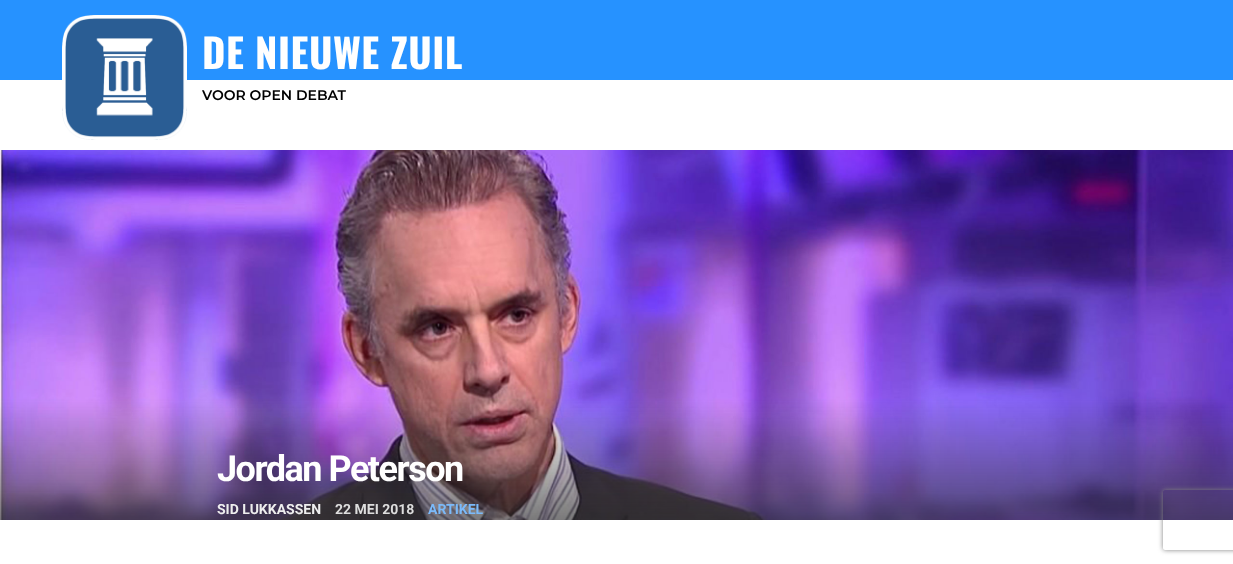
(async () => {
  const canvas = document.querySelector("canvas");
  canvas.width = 1233;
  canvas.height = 564;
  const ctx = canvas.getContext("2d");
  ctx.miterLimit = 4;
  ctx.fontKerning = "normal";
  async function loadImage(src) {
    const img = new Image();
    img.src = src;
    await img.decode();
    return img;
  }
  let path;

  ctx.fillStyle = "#ffffff";
  ctx.fillRect(0, 0, 1233, 564);
  ctx.fillStyle = "#2692ff";
  ctx.fillRect(0, 0, 1233, 80);
  ctx.drawImage(await loadImage("img/1.png"), 62, 15, 125, 125);
  ctx.drawImage(await loadImage("img/2.png"), 0, 150, 1233, 370);
  ctx.save();
  path = new Path2D("M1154 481H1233V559H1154ZM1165 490H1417C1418 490 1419 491 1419 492V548C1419 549 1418 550 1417 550H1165C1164 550 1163 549 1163 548V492C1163 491 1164 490 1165 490Z");
  ctx.clip(path, "evenodd");
  ctx.fillStyle = "#808080";
  ctx.filter = "blur(2.5px)";
  ctx.beginPath();
  ctx.roundRect(1163, 490, 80, 60, 2);
  ctx.fill();
  ctx.filter = "none";
  ctx.restore();
  ctx.letterSpacing = "0.5px";
  ctx.font = "bold 40px Oswald";
  ctx.fillStyle = "#ffffff";
  ctx.fillText("DE NIEUWE ZUIL", 202, 69);
  ctx.letterSpacing = "0px";
  ctx.font = "600 14px Montserrat";
  ctx.fillStyle = "#000000";
  ctx.fillText("VOOR OPEN DEBAT", 202, 100);
  ctx.letterSpacing = "-1.5px";
  ctx.font = "bold 36px Roboto";
  ctx.fillStyle = "#ffffff";
  ctx.fillText("Jordan Peterson", 217, 481);
  ctx.letterSpacing = "0px";
  ctx.font = "bold 14px Roboto";
  ctx.fillStyle = "#eeeeee";
  ctx.fillText("SID LUKKASSEN", 217, 514);
  ctx.fillStyle = "#dddddd";
  ctx.fillText("22 MEI 2018", 335, 514);
  ctx.fillStyle = "#7bbaf9";
  ctx.fillText("ARTIKEL", 428, 514);
})();
